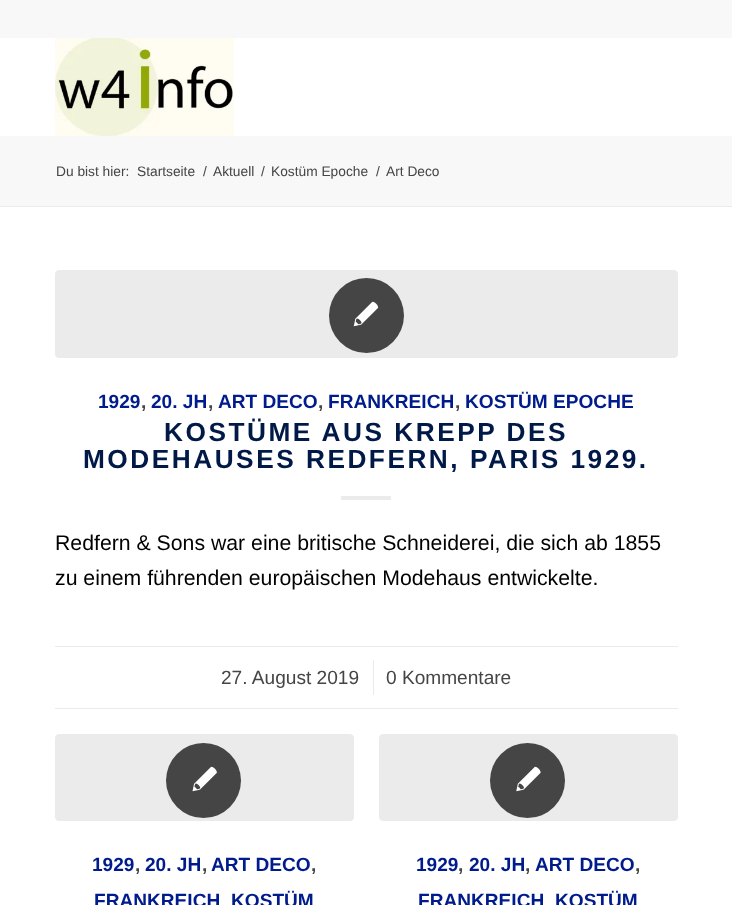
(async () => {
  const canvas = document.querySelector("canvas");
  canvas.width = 732;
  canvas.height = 905;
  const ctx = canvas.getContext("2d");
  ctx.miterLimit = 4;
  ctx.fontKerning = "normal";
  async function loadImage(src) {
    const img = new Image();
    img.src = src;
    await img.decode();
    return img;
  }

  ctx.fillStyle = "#ffffff";
  ctx.fillRect(0, 0, 732, 905);
  ctx.fillStyle = "#f8f8f8";
  ctx.fillRect(0, 0, 732, 38);
  ctx.drawImage(await loadImage("img/1.png"), 55, 38, 179, 98);
  ctx.fillRect(0, 136, 732, 70);
  ctx.fillStyle = "#ebebeb";
  ctx.fillRect(0, 206, 732, 1);
  ctx.beginPath();
  ctx.roundRect(55.5, 270.5, 622, 87, 3.5);
  ctx.fill();
  ctx.strokeStyle = "#ebebeb";
  ctx.stroke();
  ctx.fillStyle = "#454545";
  ctx.beginPath();
  ctx.arc(366.5, 315.5, 37.5, 0, Math.PI * 2);
  ctx.fill();
  ctx.drawImage(await loadImage("img/2.png"), 353, 301, 26, 26);
  for (const [x, y, w, h, color] of [
    [341, 496, 50, 4, "#ebebeb"],
    [55, 646, 623, 1, "#ebebeb"],
    [55, 708, 623, 1, "#ebebeb"],
    [373, 660, 1, 35, "#ebebeb"],
  ]) {
    ctx.fillStyle = color;
    ctx.fillRect(x, y, w, h);
  }
  ctx.beginPath();
  ctx.roundRect(55.5, 734.5, 298, 86, 3.5);
  ctx.fill();
  ctx.stroke();
  ctx.fillStyle = "#454545";
  ctx.beginPath();
  ctx.arc(203.5, 780.5, 37.5, 0, Math.PI * 2);
  ctx.fill();
  ctx.drawImage(await loadImage("img/3.png"), 192, 766, 25, 26);
  ctx.fillStyle = "#ebebeb";
  ctx.beginPath();
  ctx.roundRect(379.5, 734.5, 298, 86, 3.5);
  ctx.fill();
  ctx.stroke();
  ctx.fillStyle = "#454545";
  ctx.beginPath();
  ctx.arc(527.5, 780.5, 37.5, 0, Math.PI * 2);
  ctx.fill();
  ctx.drawImage(await loadImage("img/4.png"), 516, 766, 25, 26);
  ctx.font = "13.75px Liberation Sans";
  for (const [text, x, y] of [
    ["Du bist hier:", 56, 176],
    ["Startseite", 137, 176],
    ["/", 203, 176],
    ["Aktuell", 213, 176],
    ["/", 261, 176],
    ["Kostüm Epoche", 271, 176],
    ["/", 376, 176],
    ["Art Deco", 386, 176],
  ]) {
    ctx.fillText(text, x, y);
  }
  ctx.font = "bold 19.1px Liberation Sans";
  ctx.fillStyle = "#001c8c";
  ctx.fillText("1929", 98, 408);
  ctx.fillStyle = "#454545";
  ctx.fillText(",", 141, 408);
  ctx.fillStyle = "#001c8c";
  ctx.fillText("20. JH", 151, 408);
  ctx.fillStyle = "#454545";
  ctx.fillText(",", 208, 408);
  ctx.fillStyle = "#001c8c";
  ctx.fillText("ART DECO", 218, 408);
  ctx.fillStyle = "#454545";
  ctx.fillText(",", 318, 408);
  ctx.fillStyle = "#001c8c";
  ctx.fillText("FRANKREICH", 328, 408);
  ctx.fillStyle = "#454545";
  ctx.fillText(",", 455, 408);
  ctx.fillStyle = "#001c8c";
  ctx.fillText("KOSTÜM EPOCHE", 465, 408);
  ctx.letterSpacing = "2.5px";
  ctx.font = "bold 26.25px Liberation Sans";
  ctx.fillStyle = "#001947";
  ctx.fillText("KOSTÜME AUS KREPP DES", 164, 441);
  ctx.fillText("MODEHAUSES REDFERN, PARIS 1929.", 83, 468);
  ctx.letterSpacing = "0px";
  ctx.font = "21.25px Liberation Sans";
  ctx.fillStyle = "#000000";
  ctx.fillText("Redfern & Sons war eine britische Schneiderei, die sich ab 1855", 55, 550);
  ctx.fillText("zu einem führenden europäischen Modehaus entwickelte.", 55, 585);
  ctx.font = "19.1px Liberation Sans";
  ctx.fillStyle = "#454545";
  ctx.fillText("27. August 2019", 221, 684);
  ctx.fillText("0 Kommentare", 386, 684);
  ctx.font = "bold 19.1px Liberation Sans";
  ctx.fillStyle = "#001c8c";
  ctx.fillText("1929", 92, 871);
  ctx.fillStyle = "#454545";
  ctx.fillText(",", 135, 871);
  ctx.fillStyle = "#001c8c";
  ctx.fillText("20. JH", 145, 871);
  ctx.fillStyle = "#454545";
  ctx.fillText(",", 202, 871);
  ctx.fillStyle = "#001c8c";
  ctx.fillText("ART DECO", 211, 871);
  ctx.fillStyle = "#454545";
  ctx.fillText(",", 311, 871);
  ctx.fillStyle = "#001c8c";
  for (const [text, x, y] of [
    ["FRANKREICH", 94, 907],
    ["KOSTÜM", 231, 907],
    ["1929", 416, 871],
  ]) {
    ctx.fillText(text, x, y);
  }
  ctx.fillStyle = "#454545";
  ctx.fillText(",", 458, 871);
  ctx.fillStyle = "#001c8c";
  ctx.fillText("20. JH", 469, 871);
  ctx.fillStyle = "#454545";
  ctx.fillText(",", 525, 871);
  ctx.fillStyle = "#001c8c";
  ctx.fillText("ART DECO", 535, 871);
  ctx.fillStyle = "#454545";
  ctx.fillText(",", 635, 871);
  ctx.fillStyle = "#001c8c";
  ctx.fillText("FRANKREICH", 418, 907);
  ctx.fillText("KOSTÜM", 555, 907);
})();
